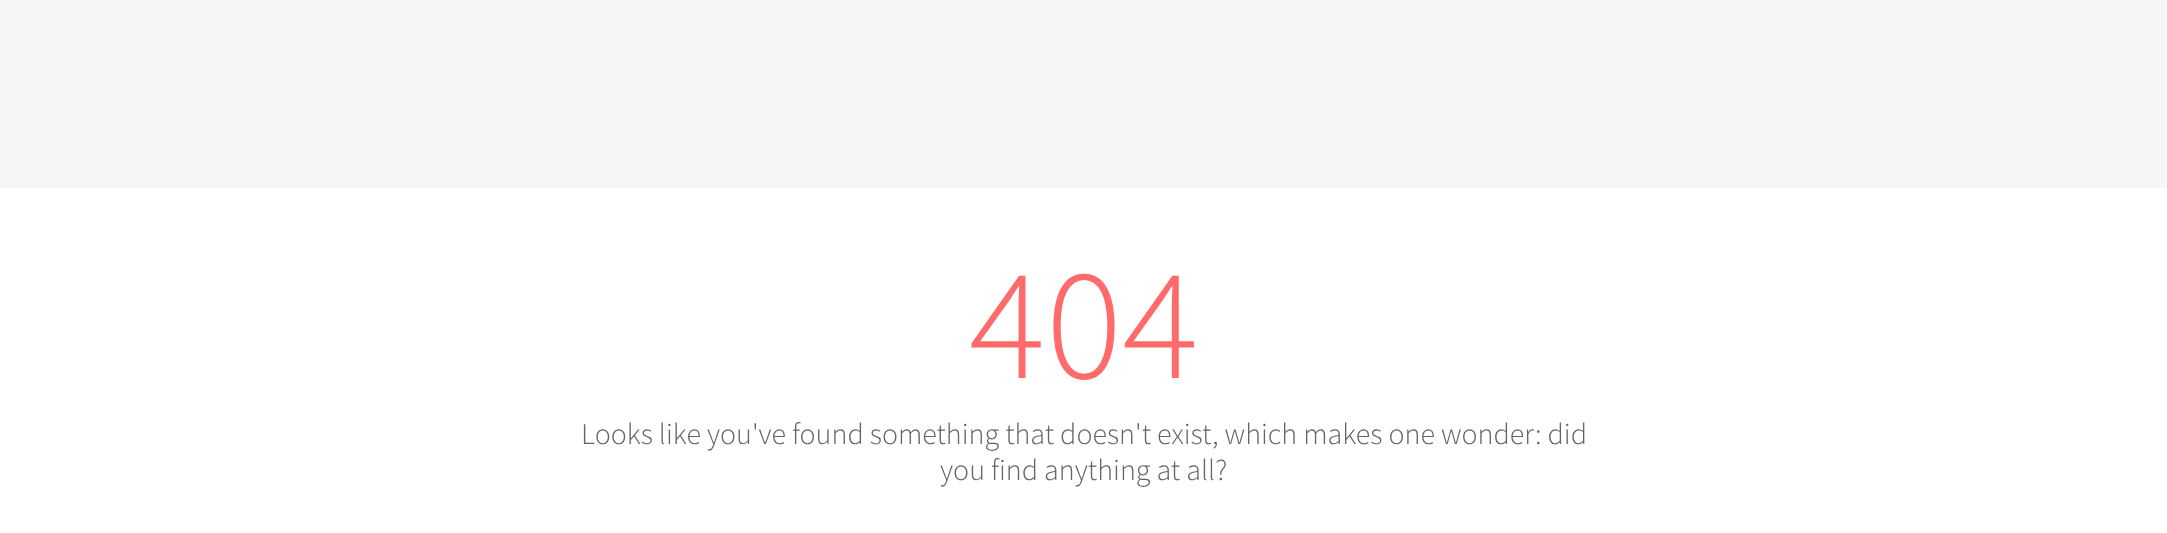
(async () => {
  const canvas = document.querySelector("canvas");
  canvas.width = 2167;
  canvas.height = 533;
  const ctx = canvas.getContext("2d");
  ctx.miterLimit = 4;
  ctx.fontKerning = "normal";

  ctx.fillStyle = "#f5f7f7";
  ctx.fillRect(0, 0, 2167, 533);
  ctx.fillStyle = "#ffffff";
  ctx.fillRect(0, 188, 2167, 345);
  ctx.font = "300 160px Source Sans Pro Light";
  ctx.fillStyle = "#ff6b6b";
  ctx.fillText("404", 969, 378);
  ctx.font = "300 30px Source Sans Pro Light";
  ctx.fillStyle = "#646464";
  ctx.fillText("Looks like you've found something that doesn't exist, which makes one wonder: did", 581, 444);
  ctx.fillText("you find anything at all?", 940, 480);
})();
